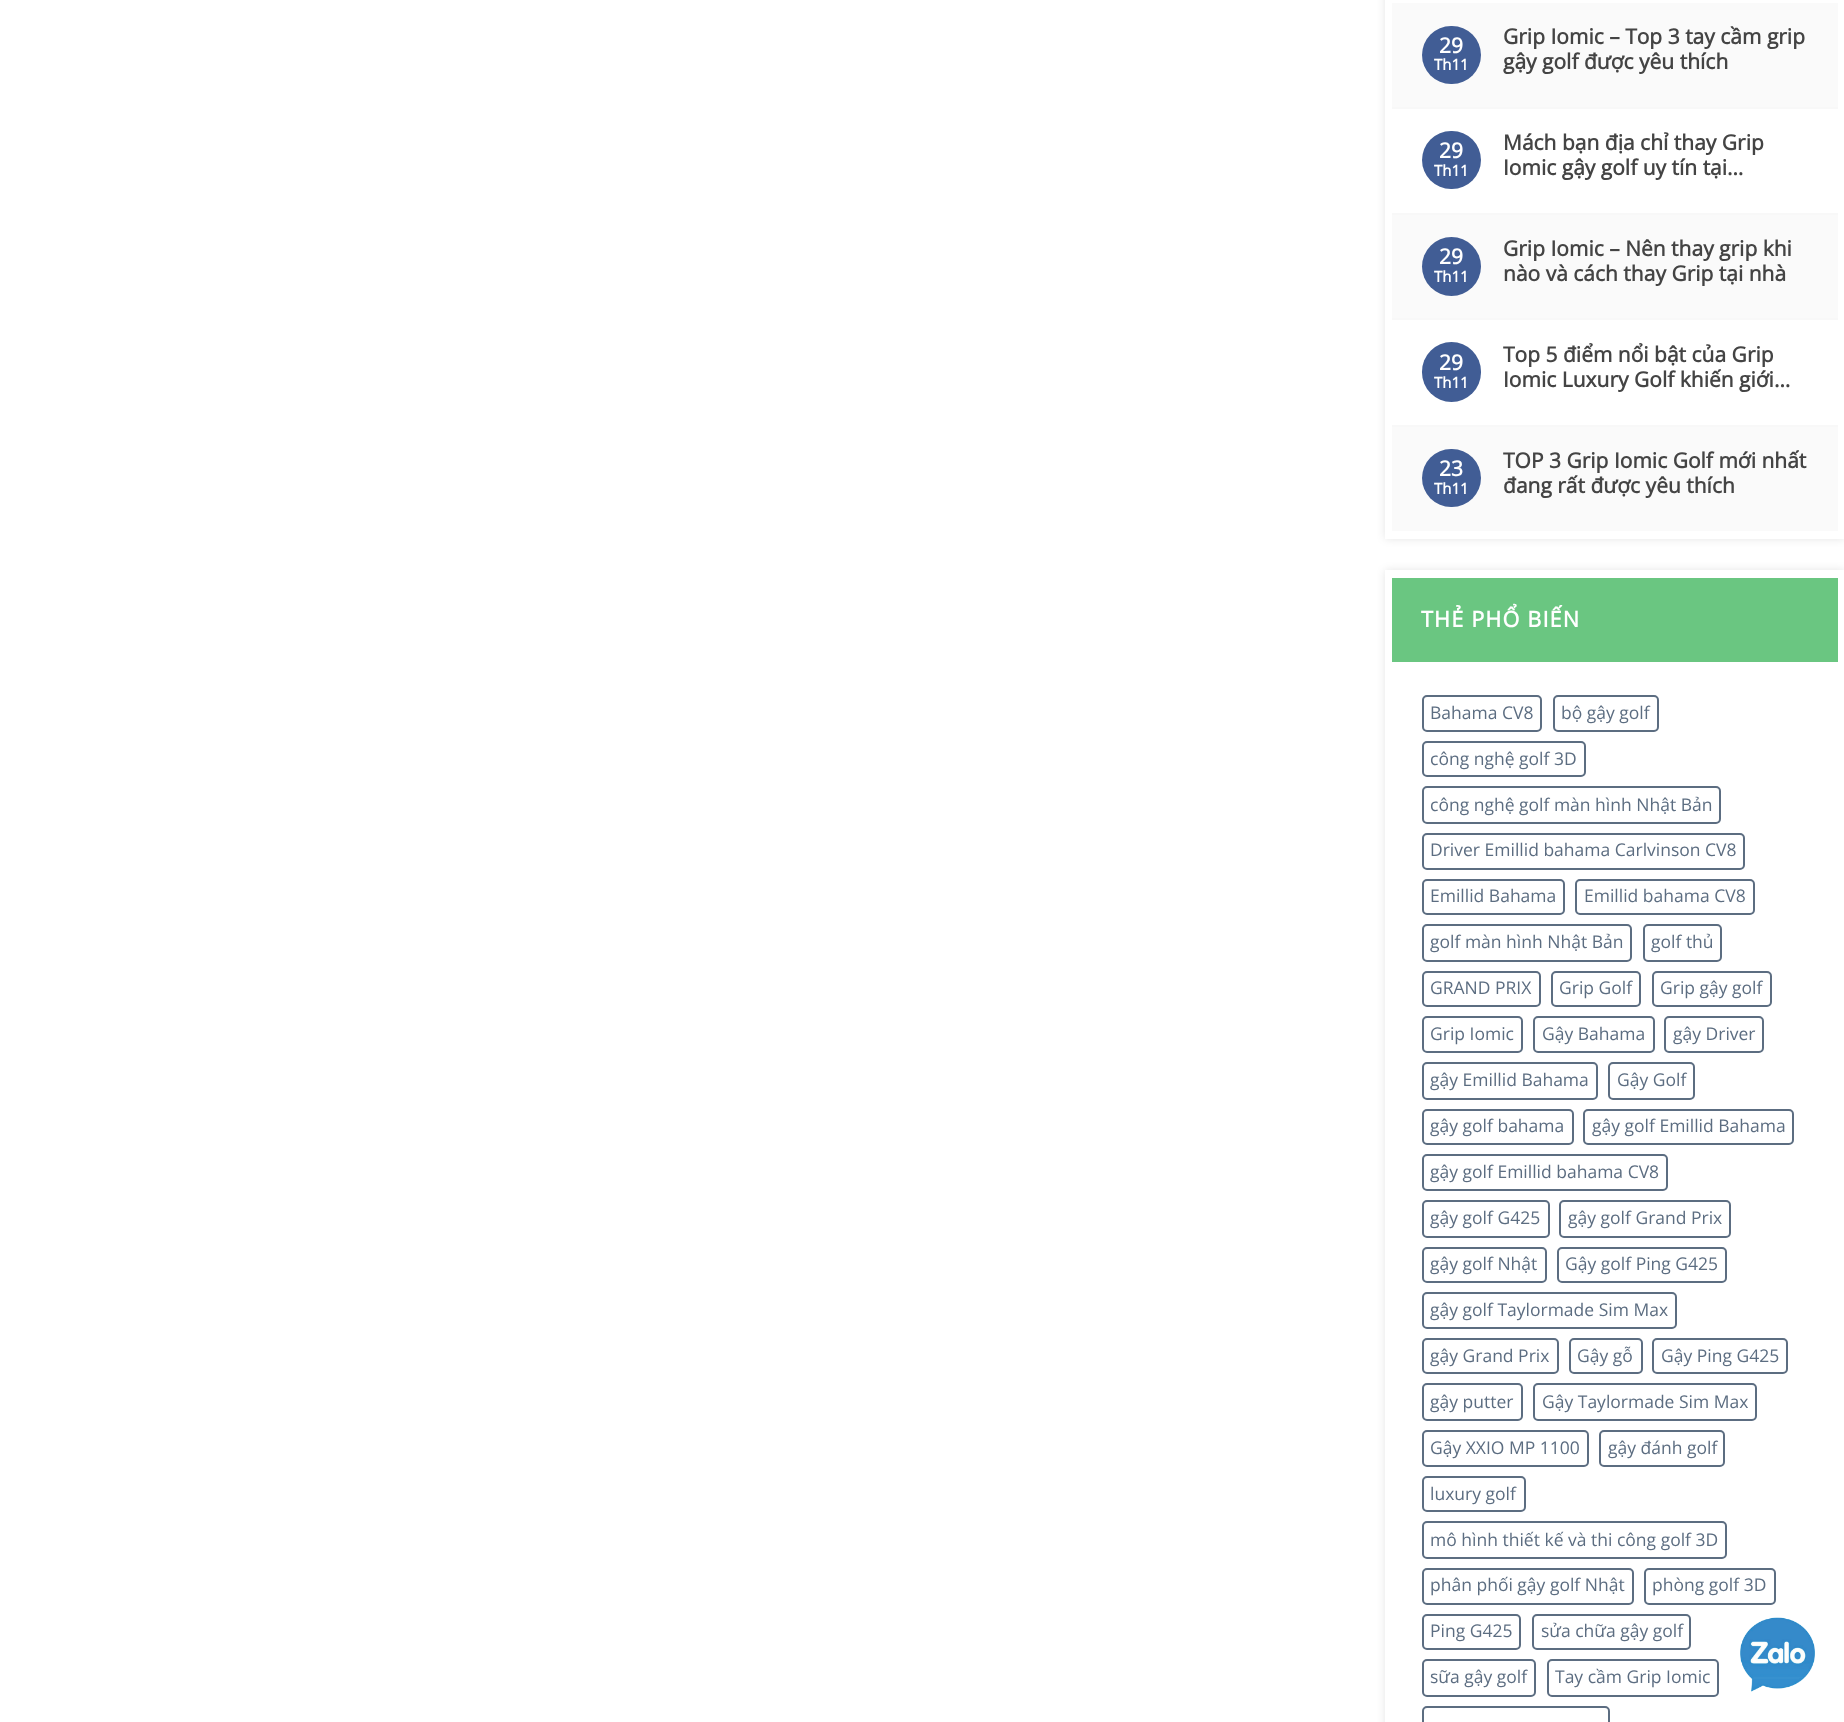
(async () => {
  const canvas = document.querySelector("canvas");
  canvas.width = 1844;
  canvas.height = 1722;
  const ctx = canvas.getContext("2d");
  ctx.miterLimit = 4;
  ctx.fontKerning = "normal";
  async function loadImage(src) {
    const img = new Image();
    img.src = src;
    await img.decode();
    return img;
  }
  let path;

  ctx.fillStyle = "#ffffff";
  ctx.fillRect(0, 0, 1844, 1722);
  ctx.fillStyle = "rgba(0, 0, 0, 0.1)";
  ctx.filter = "blur(4px)";
  ctx.beginPath();
  ctx.rect(1385, -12, 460, 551);
  ctx.fill();
  ctx.filter = "none";
  ctx.fillStyle = "#ffffff";
  ctx.fillRect(1385, 0, 459, 539);
  ctx.fillStyle = "#fafafa";
  ctx.fillRect(1392, 3, 446, 104);
  ctx.fillStyle = "#415d95";
  ctx.beginPath();
  ctx.roundRect(1422, 26, 59, 58, 29);
  ctx.fill();
  ctx.fillStyle = "#f8f8f8";
  ctx.fillRect(1392, 107, 446, 2);
  ctx.fillStyle = "#415d95";
  ctx.beginPath();
  ctx.roundRect(1422, 131, 59, 58, 29);
  ctx.fill();
  ctx.fillStyle = "#fafafa";
  ctx.fillRect(1392, 215, 446, 103);
  ctx.fillStyle = "#f8f8f8";
  ctx.fillRect(1392, 213, 446, 2);
  ctx.fillStyle = "#415d95";
  ctx.beginPath();
  ctx.arc(1451.5, 266.5, 29.5, 0, Math.PI * 2);
  ctx.fill();
  ctx.fillStyle = "#f8f8f8";
  ctx.fillRect(1392, 318, 446, 2);
  ctx.fillStyle = "#415d95";
  ctx.beginPath();
  ctx.roundRect(1422, 342, 59, 60, 29.5);
  ctx.fill();
  ctx.fillStyle = "#fafafa";
  ctx.fillRect(1392, 427, 446, 104);
  ctx.fillStyle = "#f8f8f8";
  ctx.fillRect(1392, 425, 446, 2);
  ctx.fillStyle = "#415d95";
  ctx.beginPath();
  ctx.roundRect(1422, 449, 59, 58, 29);
  ctx.fill();
  ctx.save();
  path = new Path2D("M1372 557H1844V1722H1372ZM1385 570H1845V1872H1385Z");
  ctx.clip(path, "evenodd");
  ctx.fillStyle = "rgba(0, 0, 0, 0.1)";
  ctx.filter = "blur(4px)";
  ctx.beginPath();
  ctx.rect(1385, 570, 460, 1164);
  ctx.fill();
  ctx.filter = "none";
  ctx.restore();
  ctx.fillStyle = "#6ac681";
  ctx.fillRect(1392, 578, 446, 84);
  ctx.beginPath();
  ctx.roundRect(1423, 696, 118, 35, 4);
  ctx.strokeStyle = "#5c6d81";
  ctx.lineWidth = 2;
  ctx.stroke();
  ctx.beginPath();
  ctx.roundRect(1554, 696, 104, 35, 4);
  ctx.stroke();
  ctx.beginPath();
  ctx.roundRect(1423, 742, 162, 34, 4);
  ctx.stroke();
  ctx.beginPath();
  ctx.roundRect(1423, 787, 297, 36, 4);
  ctx.stroke();
  ctx.beginPath();
  ctx.roundRect(1423, 834, 321, 35, 4);
  ctx.stroke();
  ctx.beginPath();
  ctx.roundRect(1423, 880, 141, 34, 4);
  ctx.stroke();
  ctx.beginPath();
  ctx.roundRect(1576, 880, 178, 34, 4);
  ctx.stroke();
  ctx.beginPath();
  ctx.roundRect(1423, 925, 208, 36, 4);
  ctx.stroke();
  ctx.beginPath();
  ctx.roundRect(1644, 925, 77, 36, 4);
  ctx.stroke();
  ctx.beginPath();
  ctx.roundRect(1423, 972, 117, 34, 4);
  ctx.stroke();
  ctx.beginPath();
  ctx.roundRect(1552, 972, 88, 34, 4);
  ctx.stroke();
  ctx.beginPath();
  ctx.roundRect(1653, 972, 118, 34, 4);
  ctx.stroke();
  ctx.beginPath();
  ctx.roundRect(1423, 1017, 99, 35, 4);
  ctx.stroke();
  ctx.beginPath();
  ctx.roundRect(1534, 1017, 120, 35, 4);
  ctx.stroke();
  ctx.beginPath();
  ctx.roundRect(1665, 1017, 98, 35, 4);
  ctx.stroke();
  ctx.beginPath();
  ctx.roundRect(1423, 1063, 174, 36, 4);
  ctx.stroke();
  ctx.beginPath();
  ctx.roundRect(1609, 1063, 85, 36, 4);
  ctx.stroke();
  ctx.beginPath();
  ctx.roundRect(1423, 1110, 150, 34, 4);
  ctx.stroke();
  ctx.beginPath();
  ctx.roundRect(1584, 1110, 209, 34, 4);
  ctx.stroke();
  ctx.beginPath();
  ctx.roundRect(1423, 1155, 244, 35, 4);
  ctx.stroke();
  ctx.beginPath();
  ctx.roundRect(1423, 1201, 126, 36, 4);
  ctx.stroke();
  ctx.beginPath();
  ctx.roundRect(1560, 1201, 170, 36, 4);
  ctx.stroke();
  ctx.beginPath();
  ctx.roundRect(1423, 1248, 123, 34, 4);
  ctx.stroke();
  ctx.beginPath();
  ctx.roundRect(1558, 1248, 168, 34, 4);
  ctx.stroke();
  ctx.beginPath();
  ctx.roundRect(1423, 1293, 253, 35, 4);
  ctx.stroke();
  ctx.beginPath();
  ctx.roundRect(1423, 1339, 135, 34, 4);
  ctx.stroke();
  ctx.beginPath();
  ctx.roundRect(1570, 1339, 72, 34, 4);
  ctx.stroke();
  ctx.beginPath();
  ctx.roundRect(1653, 1339, 134, 34, 4);
  ctx.stroke();
  ctx.beginPath();
  ctx.roundRect(1423, 1384, 99, 36, 4);
  ctx.stroke();
  ctx.beginPath();
  ctx.roundRect(1534, 1384, 222, 36, 4);
  ctx.stroke();
  ctx.beginPath();
  ctx.roundRect(1423, 1431, 165, 35, 4);
  ctx.stroke();
  ctx.beginPath();
  ctx.roundRect(1600, 1431, 124, 35, 4);
  ctx.stroke();
  ctx.beginPath();
  ctx.roundRect(1423, 1477, 102, 34, 4);
  ctx.stroke();
  ctx.beginPath();
  ctx.roundRect(1423, 1522, 303, 36, 4);
  ctx.stroke();
  ctx.beginPath();
  ctx.roundRect(1423, 1569, 210, 35, 4);
  ctx.stroke();
  ctx.beginPath();
  ctx.roundRect(1645, 1569, 130, 35, 4);
  ctx.stroke();
  ctx.beginPath();
  ctx.roundRect(1423, 1615, 97, 34, 4);
  ctx.stroke();
  ctx.beginPath();
  ctx.roundRect(1533, 1615, 157, 34, 4);
  ctx.stroke();
  ctx.beginPath();
  ctx.roundRect(1423, 1660, 112, 36, 4);
  ctx.stroke();
  ctx.beginPath();
  ctx.roundRect(1548, 1660, 170, 36, 4);
  ctx.stroke();
  ctx.beginPath();
  ctx.roundRect(1423, 1707, 186, 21, 4);
  ctx.stroke();
  ctx.drawImage(await loadImage("img/1.png"), 1740, 1617, 75, 75);
  ctx.font = "bold 21px Open Sans";
  ctx.fillStyle = "#ffffff";
  ctx.fillText("29", 1439, 53);
  ctx.font = "bold 15px Open Sans";
  ctx.fillText("Th11", 1434, 70);
  ctx.font = "bold 21px Open Sans";
  ctx.fillStyle = "#444444";
  ctx.fillText("Grip Iomic – Top 3 tay cầm grip", 1503, 44);
  ctx.fillText("gậy golf được yêu thích", 1503, 69);
  ctx.fillStyle = "#ffffff";
  ctx.fillText("29", 1439, 158);
  ctx.font = "bold 15px Open Sans";
  ctx.fillText("Th11", 1434, 176);
  ctx.font = "bold 21px Open Sans";
  ctx.fillStyle = "#444444";
  ctx.fillText("Mách bạn địa chỉ thay Grip", 1503, 150);
  ctx.fillText("Iomic gậy golf uy tín tại…", 1503, 175);
  ctx.fillStyle = "#ffffff";
  ctx.fillText("29", 1439, 264);
  ctx.font = "bold 15px Open Sans";
  ctx.fillText("Th11", 1434, 282);
  ctx.font = "bold 21px Open Sans";
  ctx.fillStyle = "#444444";
  ctx.fillText("Grip Iomic – Nên thay grip khi", 1503, 256);
  ctx.fillText("nào và cách thay Grip tại nhà", 1503, 281);
  ctx.fillStyle = "#ffffff";
  ctx.fillText("29", 1439, 370);
  ctx.font = "bold 15px Open Sans";
  ctx.fillText("Th11", 1434, 388);
  ctx.font = "bold 21px Open Sans";
  ctx.fillStyle = "#444444";
  ctx.fillText("Top 5 điểm nổi bật của Grip", 1503, 362);
  ctx.fillText("Iomic Luxury Golf khiến giới…", 1503, 387);
  ctx.fillStyle = "#ffffff";
  ctx.fillText("23", 1439, 476);
  ctx.font = "bold 15px Open Sans";
  ctx.fillText("Th11", 1434, 494);
  ctx.font = "bold 21px Open Sans";
  ctx.fillStyle = "#444444";
  ctx.fillText("TOP 3 Grip Iomic Golf mới nhất", 1503, 468);
  ctx.fillText("đang rất được yêu thích", 1503, 493);
  ctx.letterSpacing = "1.1px";
  ctx.font = "bold 21.75px Open Sans";
  ctx.fillStyle = "#ffffff";
  ctx.fillText("THẺ PHỔ BIẾN", 1421, 627);
  ctx.letterSpacing = "0px";
  ctx.font = "17.5px Open Sans";
  ctx.fillStyle = "#5c6d81";
  for (const [text, x, y] of [
    ["Bahama CV8", 1430, 719],
    ["bộ gậy golf", 1561, 719],
    ["công nghệ golf 3D", 1430, 765],
    ["công nghệ golf màn hình Nhật Bản", 1430, 811],
    ["Driver Emillid bahama Carlvinson CV8", 1430, 856],
    ["Emillid Bahama", 1430, 902],
    ["Emillid bahama CV8", 1584, 902],
    ["golf màn hình Nhật Bản", 1430, 948],
    ["golf thủ", 1651, 948],
    ["GRAND PRIX", 1430, 994],
    ["Grip Golf", 1559, 994],
    ["Grip gậy golf", 1660, 994],
    ["Grip Iomic", 1430, 1040],
    ["Gậy Bahama", 1542, 1040],
    ["gậy Driver", 1673, 1040],
    ["gậy Emillid Bahama", 1430, 1086],
    ["Gậy Golf", 1617, 1086],
    ["gậy golf bahama", 1430, 1132],
    ["gậy golf Emillid Bahama", 1592, 1132],
    ["gậy golf Emillid bahama CV8", 1430, 1178],
    ["gậy golf G425", 1430, 1224],
    ["gậy golf Grand Prix", 1568, 1224],
    ["gậy golf Nhật", 1430, 1270],
    ["Gậy golf Ping G425", 1565, 1270],
    ["gậy golf Taylormade Sim Max", 1430, 1316],
    ["gậy Grand Prix", 1430, 1362],
    ["Gậy gỗ", 1577, 1362],
    ["Gậy Ping G425", 1661, 1362],
    ["gậy putter", 1430, 1408],
    ["Gậy Taylormade Sim Max", 1542, 1408],
    ["Gậy XXIO MP 1100", 1430, 1454],
    ["gậy đánh golf", 1608, 1454],
    ["luxury golf", 1430, 1500],
    ["mô hình thiết kế và thi công golf 3D", 1430, 1546],
    ["phân phối gậy golf Nhật", 1430, 1591],
    ["phòng golf 3D", 1652, 1591],
    ["Ping G425", 1430, 1637],
    ["sửa chữa gậy golf", 1541, 1637],
    ["sữa gậy golf", 1430, 1683],
    ["Tay cầm Grip Iomic", 1555, 1683],
  ]) {
    ctx.fillText(text, x, y);
  }
})();
